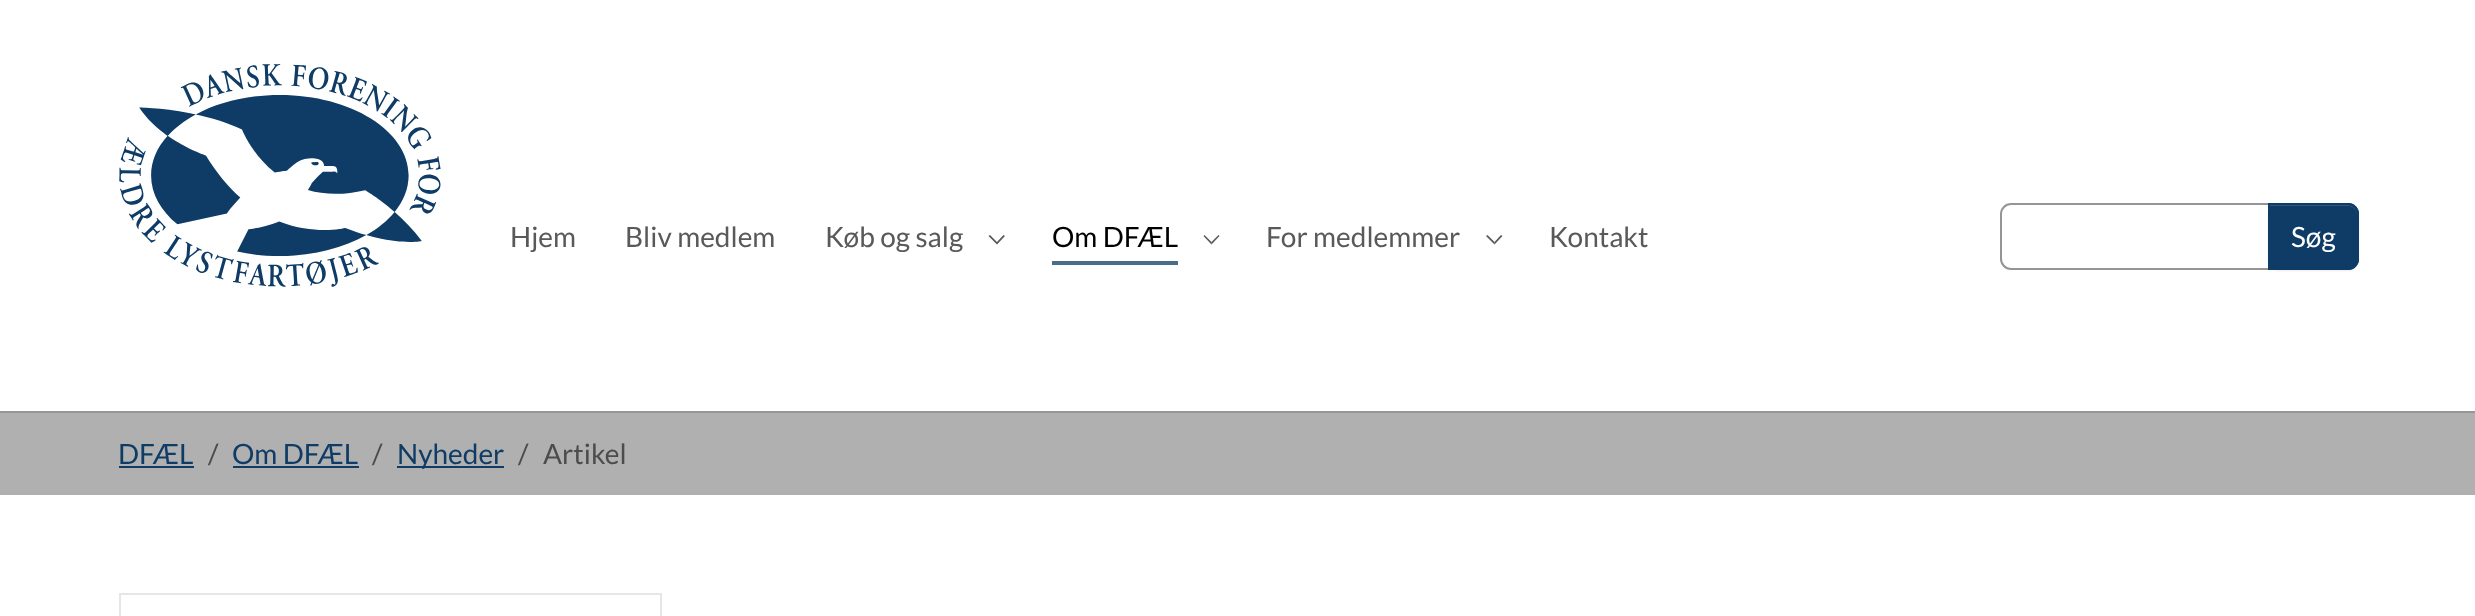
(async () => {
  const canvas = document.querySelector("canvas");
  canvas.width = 2475;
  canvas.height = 616;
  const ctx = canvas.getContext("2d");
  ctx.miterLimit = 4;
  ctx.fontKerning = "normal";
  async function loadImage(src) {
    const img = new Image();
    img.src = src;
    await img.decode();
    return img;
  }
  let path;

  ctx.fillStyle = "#ffffff";
  ctx.fillRect(0, 0, 2475, 616);
  ctx.fillStyle = "#959695";
  ctx.fillRect(0, 411, 2475, 2);
  ctx.drawImage(await loadImage("img/1.png"), 119, 64, 322, 223);
  ctx.fillStyle = "#595959";
  path = new Path2D("M997 244.5L988.5 236L990 235L997 242ZM1005 236L997 244.5V242L1003.5 235Z");
  ctx.fill(path);
  ctx.fillStyle = "#4a6d8c";
  ctx.fillRect(1052, 261, 126, 4);
  ctx.fillStyle = "#595959";
  path = new Path2D("M1211.5 244.5L1203.5 236L1204.5 235L1211.5 242Z");
  ctx.fill(path);
  ctx.fillStyle = "rgba(0, 0, 0, 0.65)";
  path = new Path2D("M1219.5 236L1211.5 244.5V242L1218.5 235Z");
  ctx.fill(path);
  ctx.fillStyle = "#595959";
  path = new Path2D("M1494.5 244.5L1486 236L1487.5 235L1494.5 242Z");
  ctx.fill(path);
  ctx.fillStyle = "rgba(0, 0, 0, 0.65)";
  path = new Path2D("M1502.5 236L1494.5 244.5V242L1501 235Z");
  ctx.fill(path);
  ctx.beginPath();
  ctx.roundRect(2001, 204, 268, 65, [10, 0, 0, 10]);
  ctx.strokeStyle = "#959595";
  ctx.lineWidth = 2;
  ctx.stroke();
  ctx.fillStyle = "rgba(0, 0, 0, 0.07)";
  ctx.filter = "blur(1px)";
  ctx.beginPath();
  ctx.roundRect(2268, 205, 91, 66, 11);
  ctx.fill();
  ctx.filter = "none";
  ctx.fillStyle = "#0e3c66";
  ctx.beginPath();
  ctx.roundRect(2268, 203, 91, 67, [0, 11, 11, 0]);
  ctx.fill();
  ctx.fillStyle = "#32597d";
  path = new Path2D("M2270 206H2348C2353 206 2357 210 2357 215V214C2357 209 2353 205 2348 205H2270Z");
  ctx.fill(path);
  ctx.beginPath();
  ctx.roundRect(2269, 204, 89, 65, [0, 10, 10, 0]);
  ctx.strokeStyle = "#0e3c66";
  ctx.stroke();
  for (const [x, y, w, h, color] of [
    [0, 413, 2475, 82, "#afb0af"],
    [119, 466, 75, 2, "#0e3c66"],
    [233, 466, 126, 2, "#0e3c66"],
    [397, 466, 107, 2, "#0e3c66"],
  ]) {
    ctx.fillStyle = color;
    ctx.fillRect(x, y, w, h);
  }
  ctx.strokeStyle = "#e6e6e6";
  ctx.strokeRect(120, 594, 541, 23);
  ctx.font = "28px Lato";
  ctx.fillStyle = "#595959";
  for (const [text, x, y] of [
    ["Hjem", 510, 247],
    ["Bliv medlem", 625, 247],
    ["Køb og salg", 825, 247],
  ]) {
    ctx.fillText(text, x, y);
  }
  ctx.fillStyle = "#000000";
  ctx.fillText("Om DFÆL", 1052, 247);
  ctx.fillStyle = "#595959";
  ctx.fillText("For medlemmer", 1266, 247);
  ctx.fillText("Kontakt", 1549, 247);
  ctx.fillStyle = "#ffffff";
  ctx.fillText("Søg", 2291, 247);
  ctx.fillStyle = "#0e3c66";
  ctx.fillText("DFÆL", 118, 464);
  ctx.fillStyle = "#4c4c4c";
  ctx.fillText("/", 208, 464);
  ctx.fillStyle = "#0e3c66";
  ctx.fillText("Om DFÆL", 232, 464);
  ctx.fillStyle = "#4c4c4c";
  ctx.fillText("/", 372, 464);
  ctx.fillStyle = "#0e3c66";
  ctx.fillText("Nyheder", 397, 464);
  ctx.fillStyle = "#4c4c4c";
  ctx.fillText("/", 518, 464);
  ctx.fillText("Artikel", 543, 464);
})();
